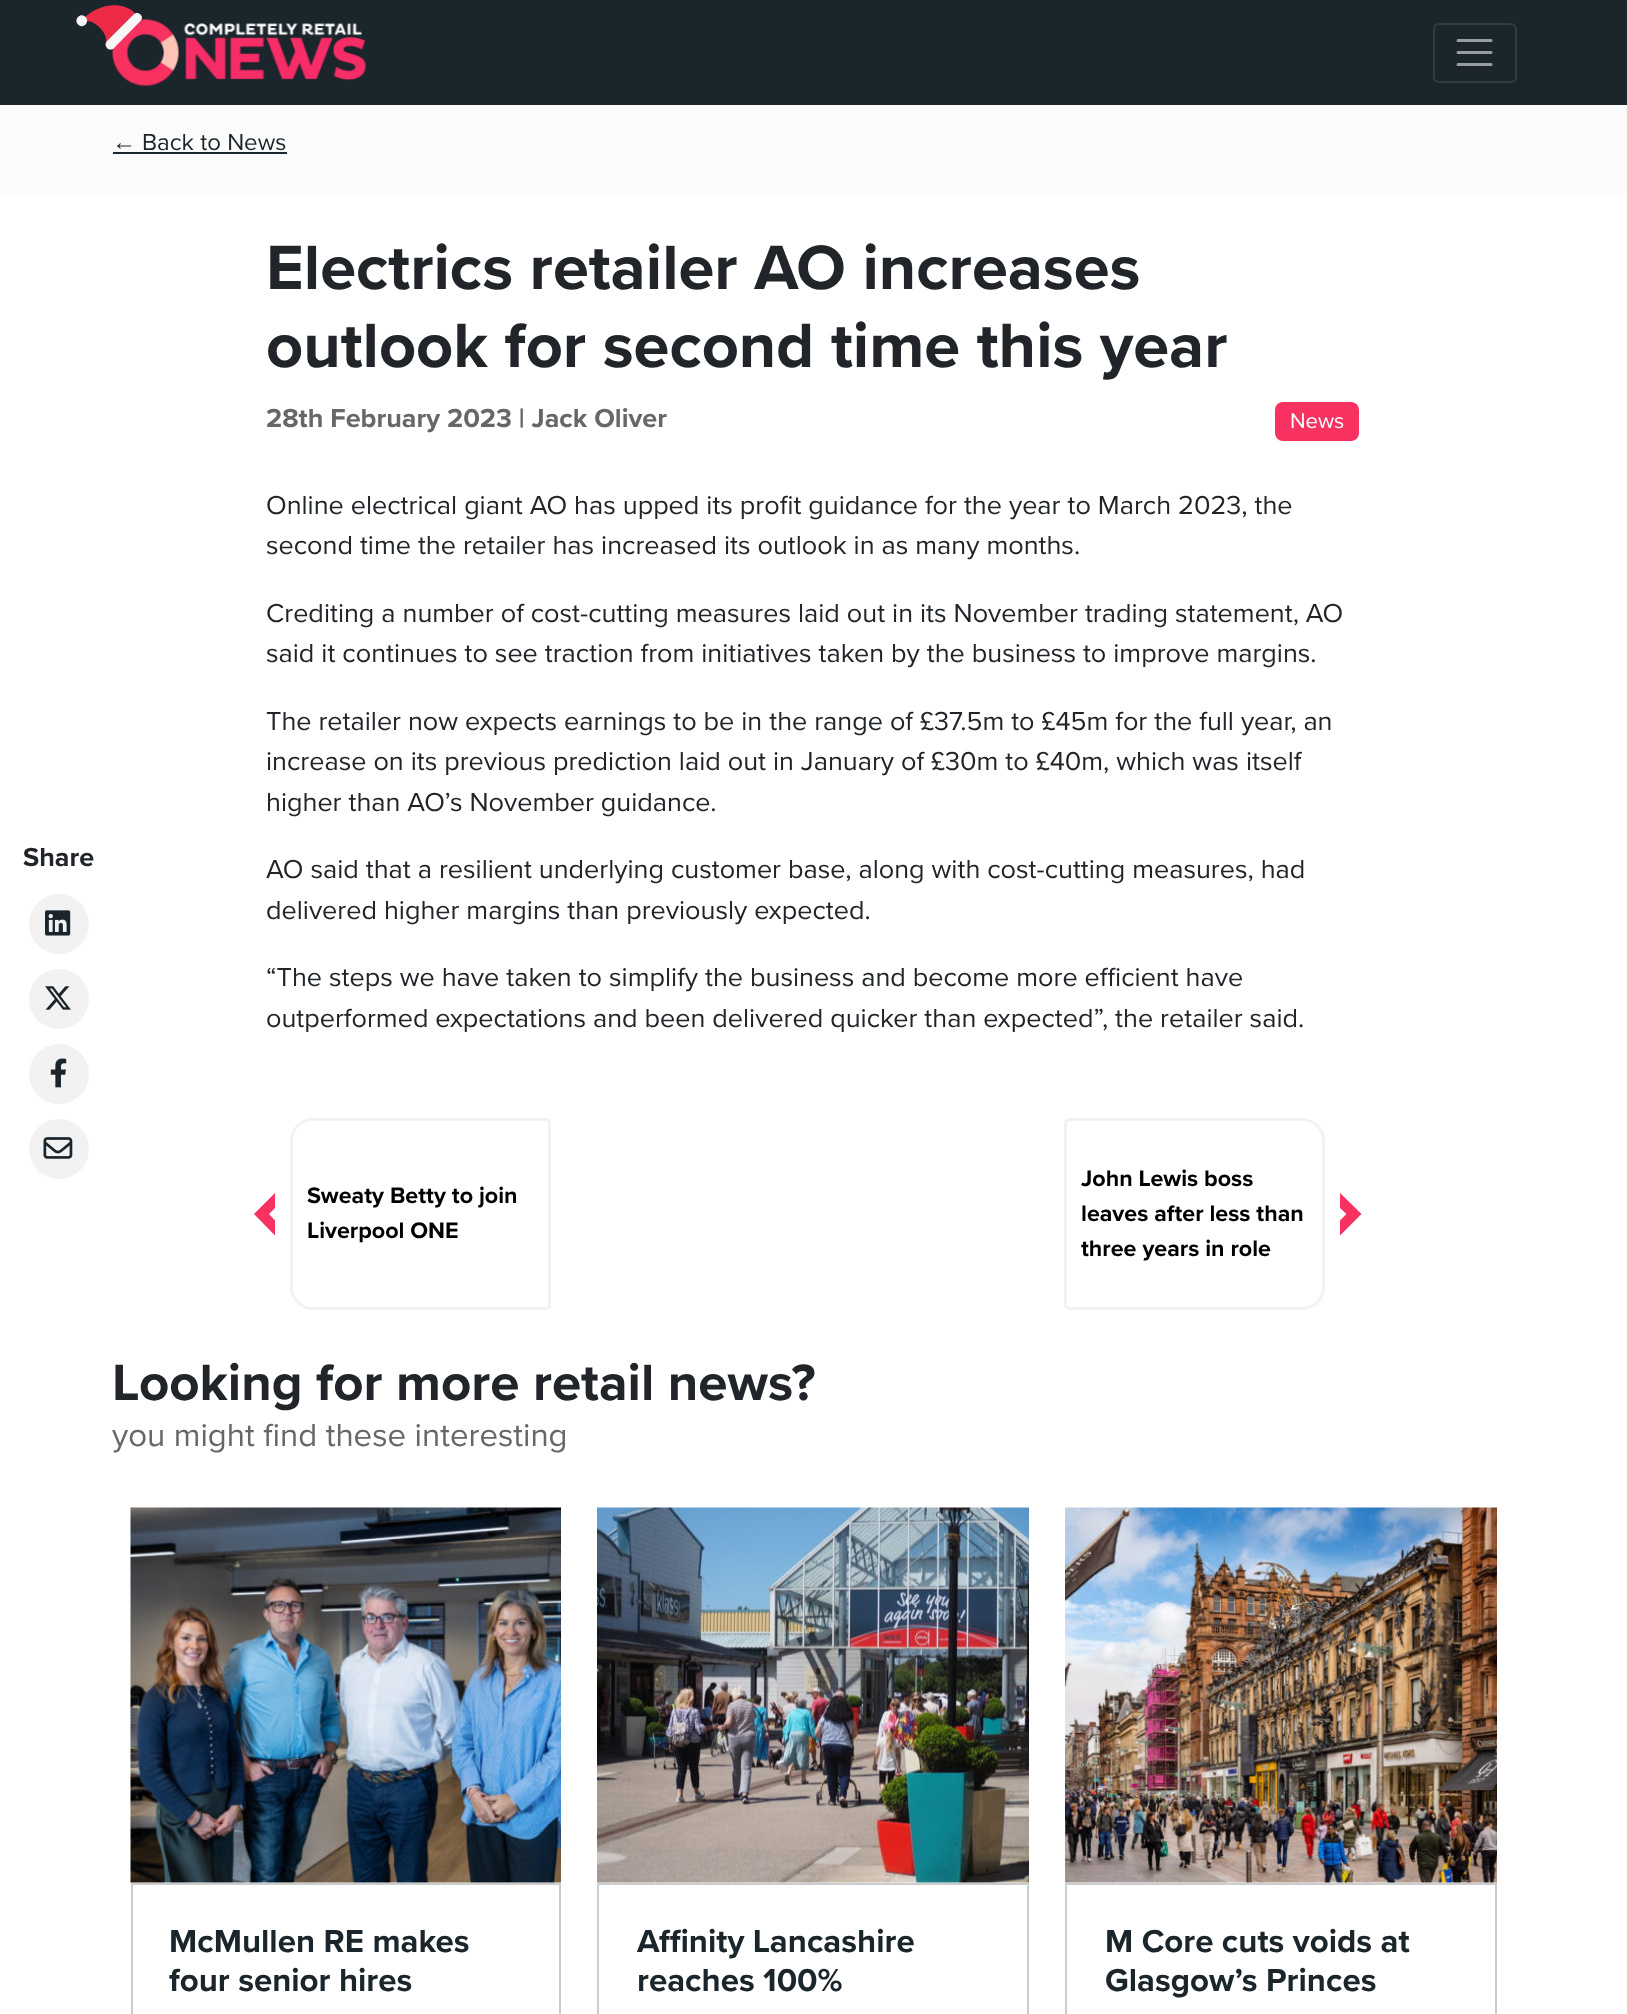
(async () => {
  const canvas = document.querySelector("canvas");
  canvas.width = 1627;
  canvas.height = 2014;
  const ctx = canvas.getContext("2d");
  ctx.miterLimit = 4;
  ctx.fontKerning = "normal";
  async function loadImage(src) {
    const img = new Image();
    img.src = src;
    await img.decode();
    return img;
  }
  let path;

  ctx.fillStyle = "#ffffff";
  ctx.fillRect(0, 0, 1627, 2014);
  ctx.fillStyle = "#1b252c";
  ctx.fillRect(0, 0, 1627, 105);
  ctx.drawImage(await loadImage("img/1.png"), 112, 19, 254, 67);
  ctx.fillStyle = "#ee2b47";
  path = new Path2D("M83 19C99 3 122 1 135 13L106 42Z");
  ctx.fill(path);
  ctx.fillStyle = "#1b252c";
  path = new Path2D("M83.5 22.5C91 15 112 36 104.5 43.5C97 51.5 75.5 30 83.5 22.5Z");
  ctx.fill(path);
  ctx.fillStyle = "#f6f6f6";
  path = new Path2D("M78 17C83 12 90.5 19.5 85.5 24.5C80.5 29.5 73 22 78 17Z");
  ctx.fill(path);
  path = new Path2D("M107 41L133.5 14.5C135.5 12.5 138.5 12.5 140.5 14.5C142.5 16 142.5 19.5 140.5 21L114 48C112 50 109 50 107 48C105 46 105 43 107 41Z");
  ctx.fill(path);
  ctx.beginPath();
  ctx.roundRect(1434, 24, 82, 58, 5);
  ctx.strokeStyle = "#323b41";
  ctx.lineWidth = 2;
  ctx.stroke();
  path = new Path2D("M1458 40.5H1491M1458 52.5H1491M1458 64.5H1491");
  ctx.strokeStyle = "#989da0";
  ctx.lineWidth = 3;
  ctx.lineCap = "round";
  ctx.stroke(path);
  ctx.fillStyle = "#fbfbfb";
  ctx.fillRect(0, 105, 1627, 89);
  ctx.fillStyle = "#1b252c";
  ctx.fillRect(113, 152, 174, 2);
  ctx.fillStyle = "#f73261";
  ctx.beginPath();
  ctx.roundRect(1275, 402, 84, 39, 8);
  ctx.fill();
  ctx.fillStyle = "#f2f2f2";
  ctx.beginPath();
  ctx.arc(59, 924, 30, 0, Math.PI * 2);
  ctx.fill();
  ctx.drawImage(await loadImage("img/2.png"), 45, 910, 26, 26);
  ctx.beginPath();
  ctx.arc(59, 999, 30, 0, Math.PI * 2);
  ctx.fill();
  ctx.drawImage(await loadImage("img/3.png"), 45, 986, 26, 24);
  ctx.beginPath();
  ctx.arc(59, 1074, 30, 0, Math.PI * 2);
  ctx.fill();
  ctx.drawImage(await loadImage("img/4.png"), 50, 1058, 17, 30);
  ctx.beginPath();
  ctx.arc(59, 1149, 30, 0, Math.PI * 2);
  ctx.fill();
  ctx.drawImage(await loadImage("img/5.png"), 43, 1137, 30, 22);
  ctx.fillStyle = "#f73261";
  path = new Path2D("M275 1235.5L254 1214H269L275 1220.5ZM254 1214L275 1193V1208L269 1214Z");
  ctx.fill(path);
  ctx.beginPath();
  ctx.roundRect(291.5, 1119.5, 258, 189, [21.5, 3.5, 3.5, 21.5]);
  ctx.strokeStyle = "#f2f2f2";
  ctx.stroke();
  ctx.beginPath();
  ctx.roundRect(1065.5, 1119.5, 258, 189, [3.5, 21.5, 21.5, 3.5]);
  ctx.stroke();
  path = new Path2D("M1340 1193L1361.5 1214H1346.5L1340 1208ZM1361.5 1214L1340 1235.5V1220.5L1346.5 1214Z");
  ctx.fill(path);
  ctx.drawImage(await loadImage("img/6.png"), 130, 1507, 431, 376);
  ctx.strokeStyle = "#cccccc";
  ctx.lineWidth = 2;
  ctx.strokeRect(132, 1884, 428, 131);
  ctx.drawImage(await loadImage("img/7.png"), 597, 1507, 432, 376);
  ctx.strokeRect(598, 1884, 430, 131);
  ctx.drawImage(await loadImage("img/8.png"), 1065, 1507, 432, 376);
  ctx.strokeRect(1066, 1884, 430, 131);
  ctx.font = "24px Liberation Sans";
  ctx.fillStyle = "#1b252c";
  ctx.fillText("←", 112, 150);
  ctx.font = "24px Proxima Nova";
  ctx.fillText("Back to News", 142, 150);
  ctx.font = "bold 64.75px Proxima Nova";
  ctx.fillStyle = "#212529";
  ctx.fillText("Electrics retailer AO increases", 266, 289);
  ctx.fillText("outlook for second time this year", 266, 367);
  ctx.font = "bold 27px Proxima Nova";
  ctx.fillStyle = "#666766";
  ctx.fillText("28th February 2023 | Jack Oliver", 266, 427);
  ctx.font = "22px Proxima Nova";
  ctx.fillStyle = "#ffffff";
  ctx.fillText("News", 1290, 428);
  ctx.font = "27px Proxima Nova";
  ctx.fillStyle = "#212529";
  for (const [text, x, y] of [
    ["Online electrical giant AO has upped its profit guidance for the year to March 2023, the", 266, 514],
    ["second time the retailer has increased its outlook in as many months.", 266, 554],
    ["Crediting a number of cost-cutting measures laid out in its November trading statement, AO", 266, 622],
    ["said it continues to see traction from initiatives taken by the business to improve margins.", 266, 662],
    ["The retailer now expects earnings to be in the range of £37.5m to £45m for the full year, an", 266, 730],
    ["increase on its previous prediction laid out in January of £30m to £40m, which was itself", 266, 770],
    ["higher than AO’s November guidance.", 266, 811],
  ]) {
    ctx.fillText(text, x, y);
  }
  ctx.font = "bold 27px Proxima Nova";
  ctx.fillText("Share", 23, 866);
  ctx.font = "27px Proxima Nova";
  for (const [text, x, y] of [
    ["AO said that a resilient underlying customer base, along with cost-cutting measures, had", 266, 878],
    ["delivered higher margins than previously expected.", 266, 919],
    ["“The steps we have taken to simplify the business and become more efficient have", 266, 986],
    ["outperformed expectations and been delivered quicker than expected”, the retailer said.", 266, 1027],
  ]) {
    ctx.fillText(text, x, y);
  }
  ctx.font = "bold 23.25px Proxima Nova";
  ctx.fillStyle = "#000000";
  for (const [text, x, y] of [
    ["Sweaty Betty to join", 307, 1203],
    ["Liverpool ONE", 307, 1238],
    ["John Lewis boss", 1081, 1186],
    ["leaves after less than", 1081, 1221],
    ["three years in role", 1081, 1256],
  ]) {
    ctx.fillText(text, x, y);
  }
  ctx.font = "bold 52.75px Proxima Nova";
  ctx.fillStyle = "#212529";
  ctx.fillText("Looking for more retail news?", 112, 1400);
  ctx.font = "33px Proxima Nova";
  ctx.fillStyle = "#666766";
  ctx.fillText("you might find these interesting", 112, 1446);
  ctx.font = "bold 33px Proxima Nova";
  ctx.fillStyle = "#1b252c";
  for (const [text, x, y] of [
    ["McMullen RE makes", 169, 1952],
    ["four senior hires", 169, 1991],
    ["Affinity Lancashire", 637, 1952],
    ["reaches 100%", 637, 1991],
    ["M Core cuts voids at", 1105, 1952],
    ["Glasgow’s Princes", 1105, 1991],
  ]) {
    ctx.fillText(text, x, y);
  }
})();
